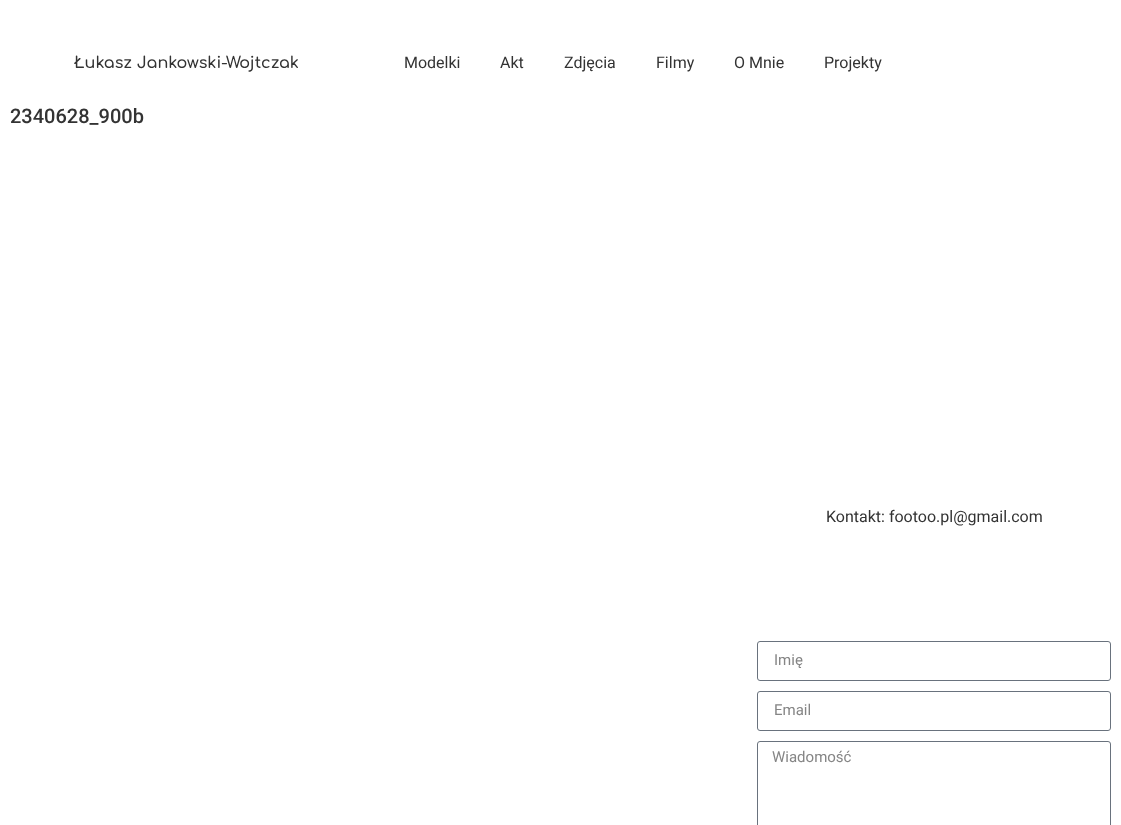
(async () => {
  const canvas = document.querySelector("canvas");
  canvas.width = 1121;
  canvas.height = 825;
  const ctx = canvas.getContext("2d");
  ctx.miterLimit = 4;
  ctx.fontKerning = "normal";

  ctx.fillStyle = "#ffffff";
  ctx.fillRect(0, 0, 1121, 825);
  ctx.beginPath();
  ctx.roundRect(757.5, 641.5, 353, 39, 2.5);
  ctx.strokeStyle = "#69727d";
  ctx.stroke();
  ctx.beginPath();
  ctx.roundRect(757.5, 691.5, 353, 39, 2.5);
  ctx.stroke();
  ctx.beginPath();
  ctx.roundRect(757.5, 741.5, 353, 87, 2.5);
  ctx.stroke();
  ctx.font = "600 16px Comfortaa";
  ctx.fillStyle = "#333333";
  ctx.fillText("Łukasz Jankowski-Wojtczak", 74, 68);
  ctx.font = "16px Roboto";
  for (const [text, x, y] of [
    ["Modelki", 404, 68],
    ["Akt", 500, 68],
    ["Zdjęcia", 564, 68],
    ["Filmy", 656, 68],
    ["O Mnie", 734, 68],
    ["Projekty", 824, 68],
  ]) {
    ctx.fillText(text, x, y);
  }
  ctx.font = "500 20px Roboto";
  ctx.fillText("2340628_900b", 10, 123);
  ctx.font = "16px Roboto";
  ctx.fillText("Kontakt: footoo.pl@gmail.com", 826, 522);
  ctx.font = "15px Roboto";
  ctx.fillStyle = "#858585";
  for (const [text, x, y] of [
    ["Imię", 774, 665],
    ["Email", 774, 715],
    ["Wiadomość", 772, 762],
  ]) {
    ctx.fillText(text, x, y);
  }
})();
